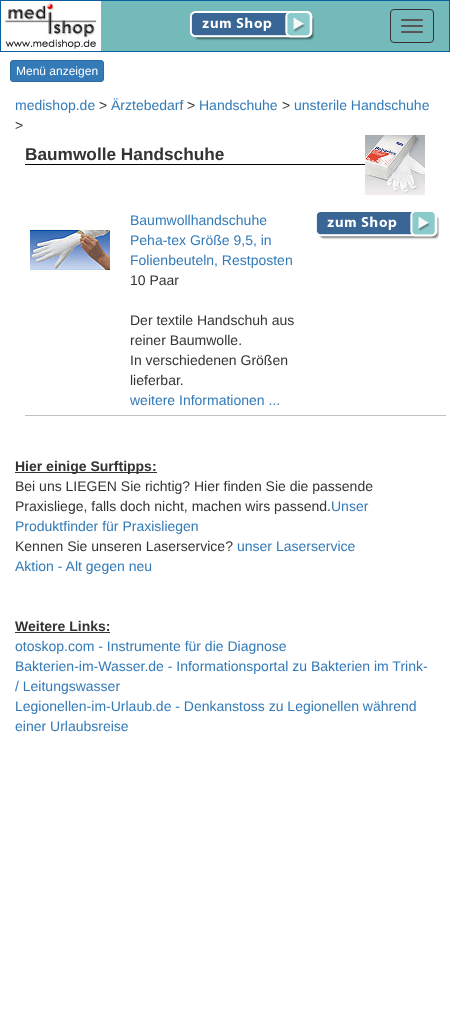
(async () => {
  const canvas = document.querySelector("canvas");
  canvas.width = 450;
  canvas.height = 1017;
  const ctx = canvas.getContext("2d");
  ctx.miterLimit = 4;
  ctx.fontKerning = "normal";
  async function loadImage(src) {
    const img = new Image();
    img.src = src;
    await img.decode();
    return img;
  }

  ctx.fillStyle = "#ffffff";
  ctx.fillRect(0, 0, 450, 1017);
  ctx.fillStyle = "#74baba";
  ctx.fillRect(101, 1, 348, 50);
  ctx.strokeStyle = "#0a609e";
  ctx.strokeRect(0.5, 0.5, 449, 51);
  ctx.drawImage(await loadImage("img/1.png"), 1, 1, 100, 50);
  ctx.drawImage(await loadImage("img/2.png"), 190, 11, 125, 30);
  ctx.beginPath();
  ctx.roundRect(390.5, 9.5, 43, 33, 3.5);
  ctx.strokeStyle = "#333333";
  ctx.stroke();
  ctx.fillStyle = "#555555";
  ctx.beginPath();
  ctx.roundRect(401, 19, 22, 2, 1);
  ctx.fill();
  ctx.beginPath();
  ctx.roundRect(401, 25, 22, 2, 1);
  ctx.fill();
  ctx.beginPath();
  ctx.roundRect(401, 31, 22, 2, 1);
  ctx.fill();
  ctx.fillStyle = "#337ab7";
  ctx.beginPath();
  ctx.roundRect(10.5, 60.5, 93, 21, 2.5);
  ctx.fill();
  ctx.strokeStyle = "#2e6da4";
  ctx.stroke();
  ctx.fillStyle = "#000000";
  ctx.fillRect(25, 164, 340, 1);
  ctx.drawImage(await loadImage("img/3.png"), 365, 135, 60, 60);
  ctx.fillStyle = "#bdc2c9";
  ctx.fillRect(25, 415, 421, 1);
  ctx.drawImage(await loadImage("img/4.png"), 316, 210, 124, 30);
  ctx.drawImage(await loadImage("img/5.png"), 30, 226, 80, 48);
  ctx.fillStyle = "#333333";
  ctx.fillRect(15, 472, 142, 1);
  ctx.fillRect(15, 632, 95, 1);
  ctx.font = "12px Liberation Sans";
  ctx.fillStyle = "#ffffff";
  ctx.fillText("Menü anzeigen", 16, 75);
  ctx.font = "14px Liberation Sans";
  ctx.fillStyle = "#337ab7";
  ctx.fillText("medishop.de", 15, 110);
  ctx.fillStyle = "#333333";
  ctx.fillText(">", 99, 110);
  ctx.fillStyle = "#337ab7";
  ctx.fillText("Ärztebedarf", 111, 110);
  ctx.fillStyle = "#333333";
  ctx.fillText(">", 187, 110);
  ctx.fillStyle = "#337ab7";
  ctx.fillText("Handschuhe", 199, 110);
  ctx.fillStyle = "#333333";
  ctx.fillText(">", 282, 110);
  ctx.fillStyle = "#337ab7";
  ctx.fillText("unsterile Handschuhe", 294, 110);
  ctx.fillStyle = "#333333";
  ctx.fillText(">", 15, 130);
  ctx.font = "bold 17.25px Liberation Sans";
  ctx.fillText("Baumwolle Handschuhe", 25, 160);
  ctx.font = "14px Liberation Sans";
  ctx.fillStyle = "#337ab7";
  for (const [text, x, y] of [
    ["Baumwollhandschuhe", 130, 225],
    ["Peha-tex Größe 9,5, in", 130, 245],
    ["Folienbeuteln, Restposten", 130, 265],
  ]) {
    ctx.fillText(text, x, y);
  }
  ctx.fillStyle = "#333333";
  for (const [text, x, y] of [
    ["10 Paar", 130, 285],
    ["Der textile Handschuh aus", 130, 325],
    ["reiner Baumwolle.", 130, 345],
    ["In verschiedenen Größen", 130, 365],
    ["lieferbar.", 130, 385],
  ]) {
    ctx.fillText(text, x, y);
  }
  ctx.fillStyle = "#337ab7";
  ctx.fillText("weitere Informationen ...", 130, 405);
  ctx.font = "bold 14px Liberation Sans";
  ctx.fillStyle = "#333333";
  ctx.fillText("Hier einige Surftipps:", 15, 471);
  ctx.font = "14px Liberation Sans";
  ctx.fillText("Bei uns LIEGEN Sie richtig? Hier finden Sie die passende", 15, 491);
  ctx.fillText("Praxisliege, falls doch nicht, machen wirs passend.", 15, 511);
  ctx.fillStyle = "#337ab7";
  ctx.fillText("Unser", 331, 511);
  ctx.fillText("Produktfinder für Praxisliegen", 15, 531);
  ctx.fillStyle = "#333333";
  ctx.fillText("Kennen Sie unseren Laserservice?", 15, 551);
  ctx.fillStyle = "#337ab7";
  ctx.fillText("unser Laserservice", 237, 551);
  ctx.fillText("Aktion - Alt gegen neu", 15, 571);
  ctx.font = "bold 14px Liberation Sans";
  ctx.fillStyle = "#333333";
  ctx.fillText("Weitere Links:", 15, 631);
  ctx.font = "14px Liberation Sans";
  ctx.fillStyle = "#337ab7";
  for (const [text, x, y] of [
    ["otoskop.com - Instrumente für die Diagnose", 15, 651],
    ["Bakterien-im-Wasser.de - Informationsportal zu Bakterien im Trink-", 15, 671],
    ["/ Leitungswasser", 15, 691],
    ["Legionellen-im-Urlaub.de - Denkanstoss zu Legionellen während", 15, 711],
    ["einer Urlaubsreise", 15, 731],
  ]) {
    ctx.fillText(text, x, y);
  }
})();
